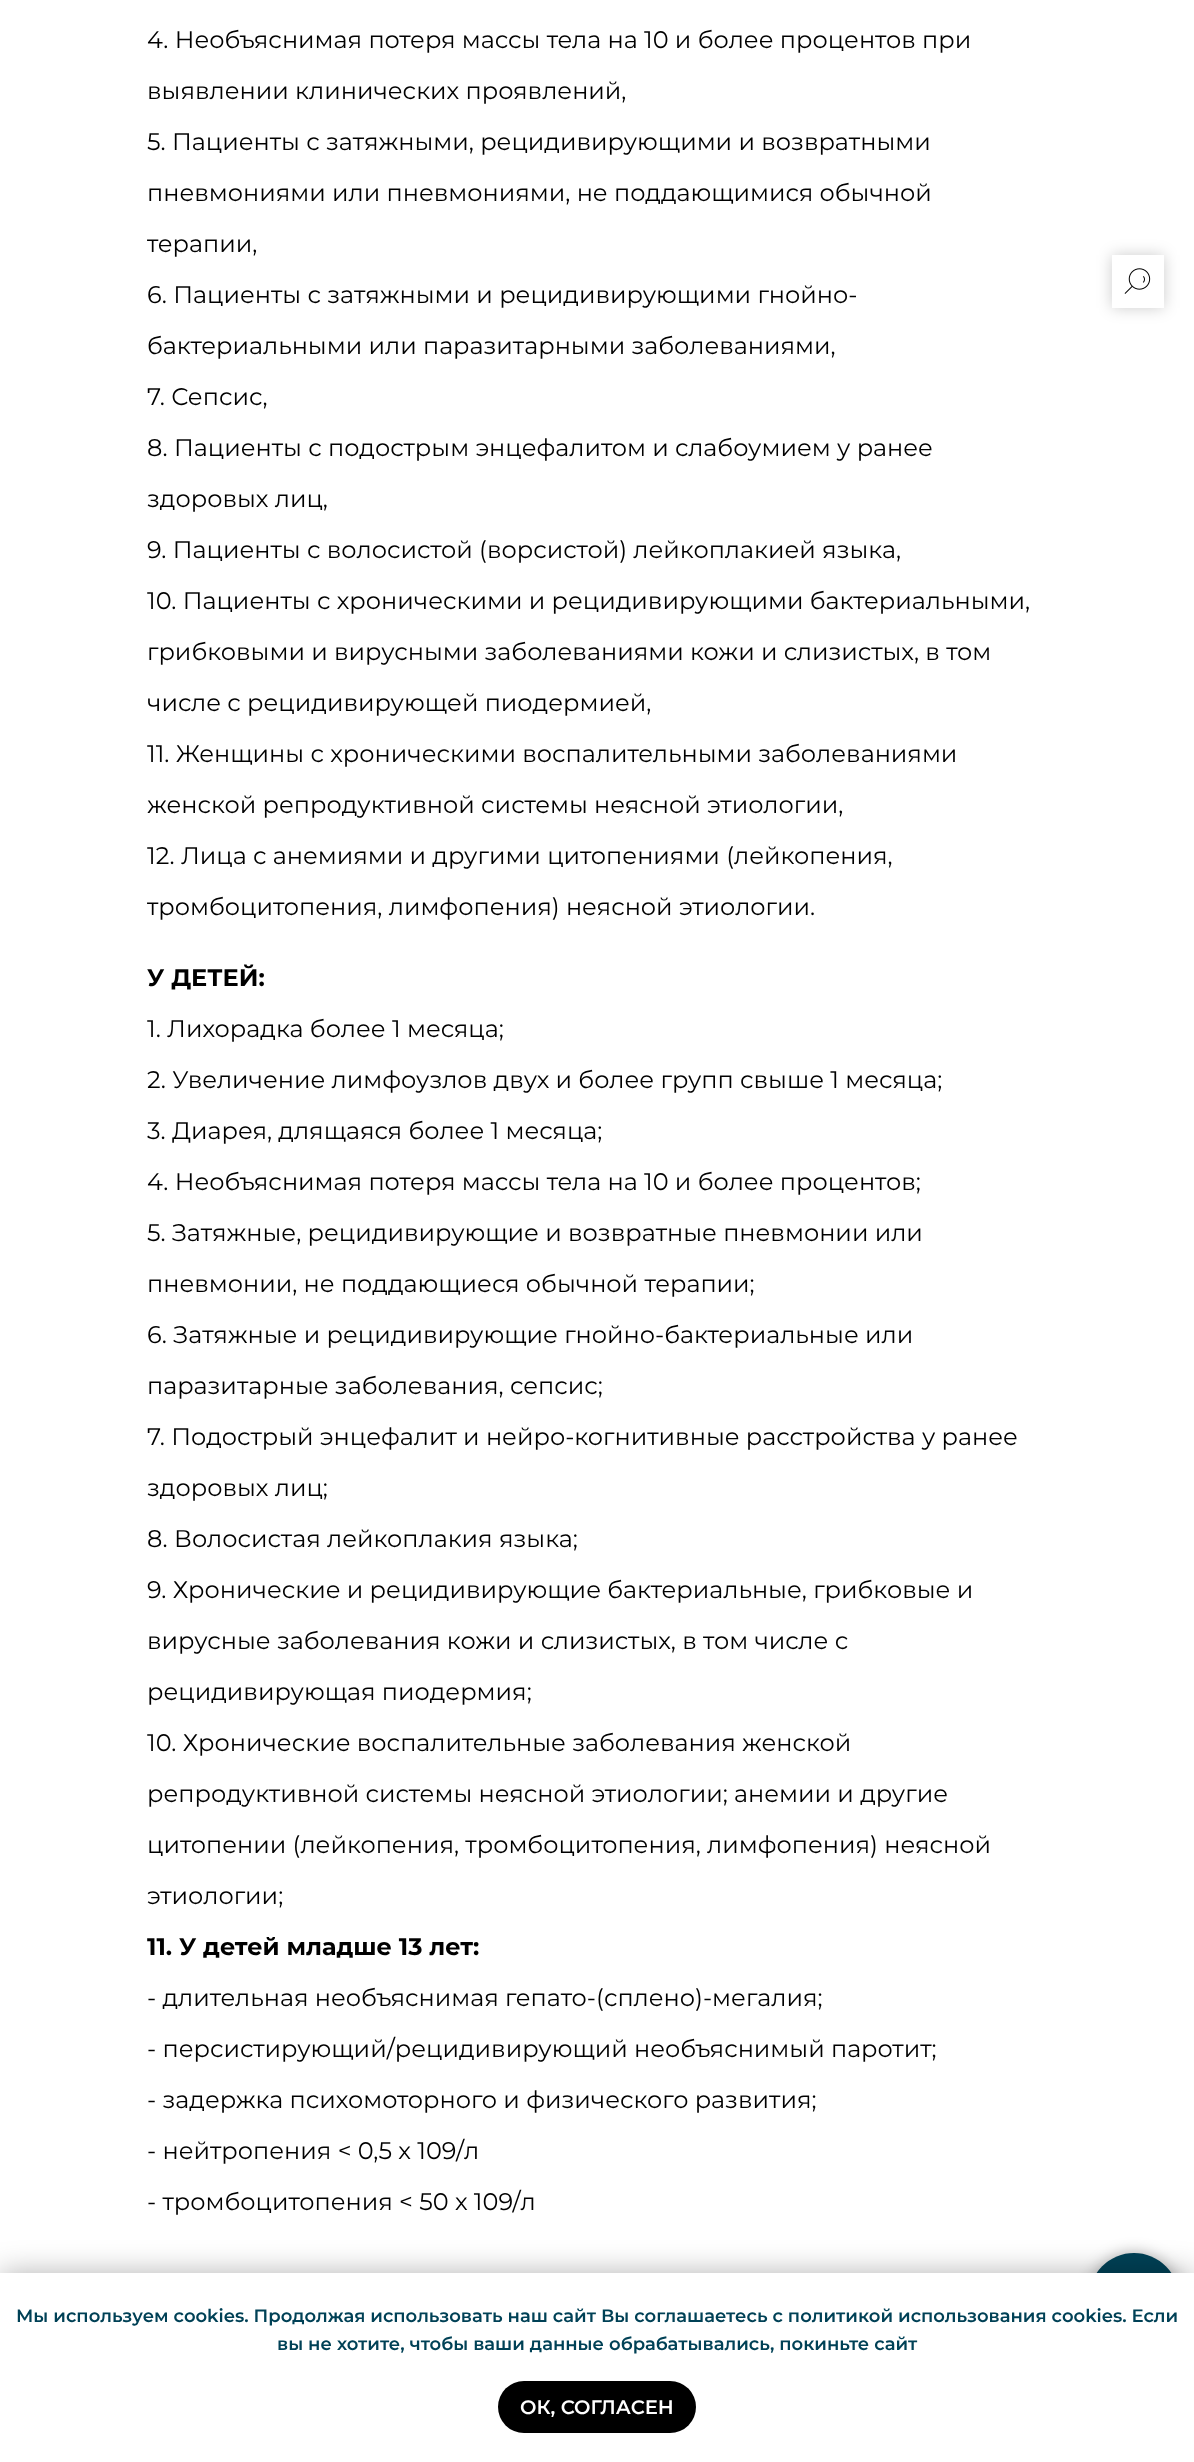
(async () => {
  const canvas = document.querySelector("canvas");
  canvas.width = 1194;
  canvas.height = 2462;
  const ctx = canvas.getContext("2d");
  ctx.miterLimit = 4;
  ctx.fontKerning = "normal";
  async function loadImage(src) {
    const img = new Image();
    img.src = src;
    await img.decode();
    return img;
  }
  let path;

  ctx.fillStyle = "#ffffff";
  ctx.fillRect(0, 0, 1194, 2462);
  ctx.save();
  path = new Path2D("M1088 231H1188V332H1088ZM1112 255H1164V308H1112Z");
  ctx.clip(path, "evenodd");
  ctx.fillStyle = "rgba(0, 0, 0, 0.2)";
  ctx.filter = "blur(7.5px)";
  ctx.beginPath();
  ctx.rect(1112, 255, 52, 53);
  ctx.fill();
  ctx.filter = "none";
  ctx.restore();
  ctx.fillStyle = "rgba(255, 255, 255, 0.8)";
  ctx.fillRect(1112, 307, 52, 1);
  ctx.drawImage(await loadImage("img/1.png"), 1124, 268, 27, 26);
  ctx.fillStyle = "rgba(0, 0, 0, 0.3)";
  ctx.filter = "blur(7.5px)";
  ctx.beginPath();
  ctx.roundRect(1089, 2253, 90, 90, 45);
  ctx.fill();
  ctx.filter = "none";
  ctx.fillStyle = "#004156";
  ctx.beginPath();
  ctx.arc(1134, 2298, 45, 0, Math.PI * 2);
  ctx.fill();
  ctx.fillStyle = "rgba(0, 0, 0, 0.3)";
  ctx.filter = "blur(15px)";
  ctx.beginPath();
  ctx.rect(0, 2273, 1194, 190);
  ctx.fill();
  ctx.filter = "none";
  ctx.fillStyle = "#ffffff";
  ctx.fillRect(0, 2273, 1194, 189);
  ctx.fillStyle = "#000000";
  ctx.beginPath();
  ctx.roundRect(498, 2381, 198, 52, 26);
  ctx.fill();
  ctx.font = "24px Montserrat";
  for (const [text, x, y] of [
    ["4. Необъяснимая потеря массы тела на 10 и более процентов при", 147, 48],
    ["выявлении клинических проявлений,", 147, 99],
    ["5. Пациенты с затяжными, рецидивирующими и возвратными", 147, 150],
    ["пневмониями или пневмониями, не поддающимися обычной", 147, 201],
    ["терапии,", 147, 252],
    ["6. Пациенты с затяжными и рецидивирующими гнойно-", 147, 303],
    ["бактериальными или паразитарными заболеваниями,", 147, 354],
    ["7. Сепсис,", 147, 405],
    ["8. Пациенты с подострым энцефалитом и слабоумием у ранее", 147, 456],
    ["здоровых лиц,", 147, 507],
    ["9. Пациенты с волосистой (ворсистой) лейкоплакией языка,", 147, 558],
    ["10. Пациенты с хроническими и рецидивирующими бактериальными,", 147, 609],
    ["грибковыми и вирусными заболеваниями кожи и слизистых, в том", 147, 660],
    ["числе с рецидивирующей пиодермией,", 147, 711],
    ["11. Женщины с хроническими воспалительными заболеваниями", 147, 762],
    ["женской репродуктивной системы неясной этиологии,", 147, 813],
    ["12. Лица с анемиями и другими цитопениями (лейкопения,", 147, 864],
    ["тромбоцитопения, лимфопения) неясной этиологии.", 147, 915],
  ]) {
    ctx.fillText(text, x, y);
  }
  ctx.font = "bold 24px Montserrat";
  ctx.fillText("У ДЕТЕЙ:", 147, 986);
  ctx.font = "24px Montserrat";
  for (const [text, x, y] of [
    ["1. Лихорадка более 1 месяца;", 147, 1037],
    ["2. Увеличение лимфоузлов двух и более групп свыше 1 месяца;", 147, 1088],
    ["3. Диарея, длящаяся более 1 месяца;", 147, 1139],
    ["4. Необъяснимая потеря массы тела на 10 и более процентов;", 147, 1190],
    ["5. Затяжные, рецидивирующие и возвратные пневмонии или", 147, 1241],
    ["пневмонии, не поддающиеся обычной терапии;", 147, 1292],
    ["6. Затяжные и рецидивирующие гнойно-бактериальные или", 147, 1343],
    ["паразитарные заболевания, сепсис;", 147, 1394],
    ["7. Подострый энцефалит и нейро-когнитивные расстройства у ранее", 147, 1445],
    ["здоровых лиц;", 147, 1496],
    ["8. Волосистая лейкоплакия языка;", 147, 1547],
    ["9. Хронические и рецидивирующие бактериальные, грибковые и", 147, 1598],
    ["вирусные заболевания кожи и слизистых, в том числе с", 147, 1649],
    ["рецидивирующая пиодермия;", 147, 1700],
    ["10. Хронические воспалительные заболевания женской", 147, 1751],
    ["репродуктивной системы неясной этиологии; анемии и другие", 147, 1802],
    ["цитопении (лейкопения, тромбоцитопения, лимфопения) неясной", 147, 1853],
    ["этиологии;", 147, 1904],
  ]) {
    ctx.fillText(text, x, y);
  }
  ctx.font = "bold 24px Montserrat";
  ctx.fillText("11. У детей младше 13 лет:", 147, 1955);
  ctx.font = "24px Montserrat";
  for (const [text, x, y] of [
    ["- длительная необъяснимая гепато-(сплено)-мегалия;", 147, 2006],
    ["- персистирующий/рецидивирующий необъяснимый паротит;", 147, 2057],
    ["- задержка психомоторного и физического развития;", 147, 2108],
    ["- нейтропения < 0,5 х 109/л", 147, 2159],
    ["- тромбоцитопения < 50 х 109/л", 147, 2210],
  ]) {
    ctx.fillText(text, x, y);
  }
  ctx.font = "600 18px Montserrat";
  ctx.fillStyle = "#004156";
  ctx.fillText("Мы используем cookies. Продолжая использовать наш сайт Вы соглашаетесь с политикой использования cookies. Если", 16, 2322);
  ctx.fillText("вы не хотите, чтобы ваши данные обрабатывались, покиньте сайт", 277, 2350);
  ctx.font = "600 19.5px Montserrat";
  ctx.fillStyle = "#ffffff";
  ctx.fillText("ОК, СОГЛАСЕН", 520, 2414);
})();
